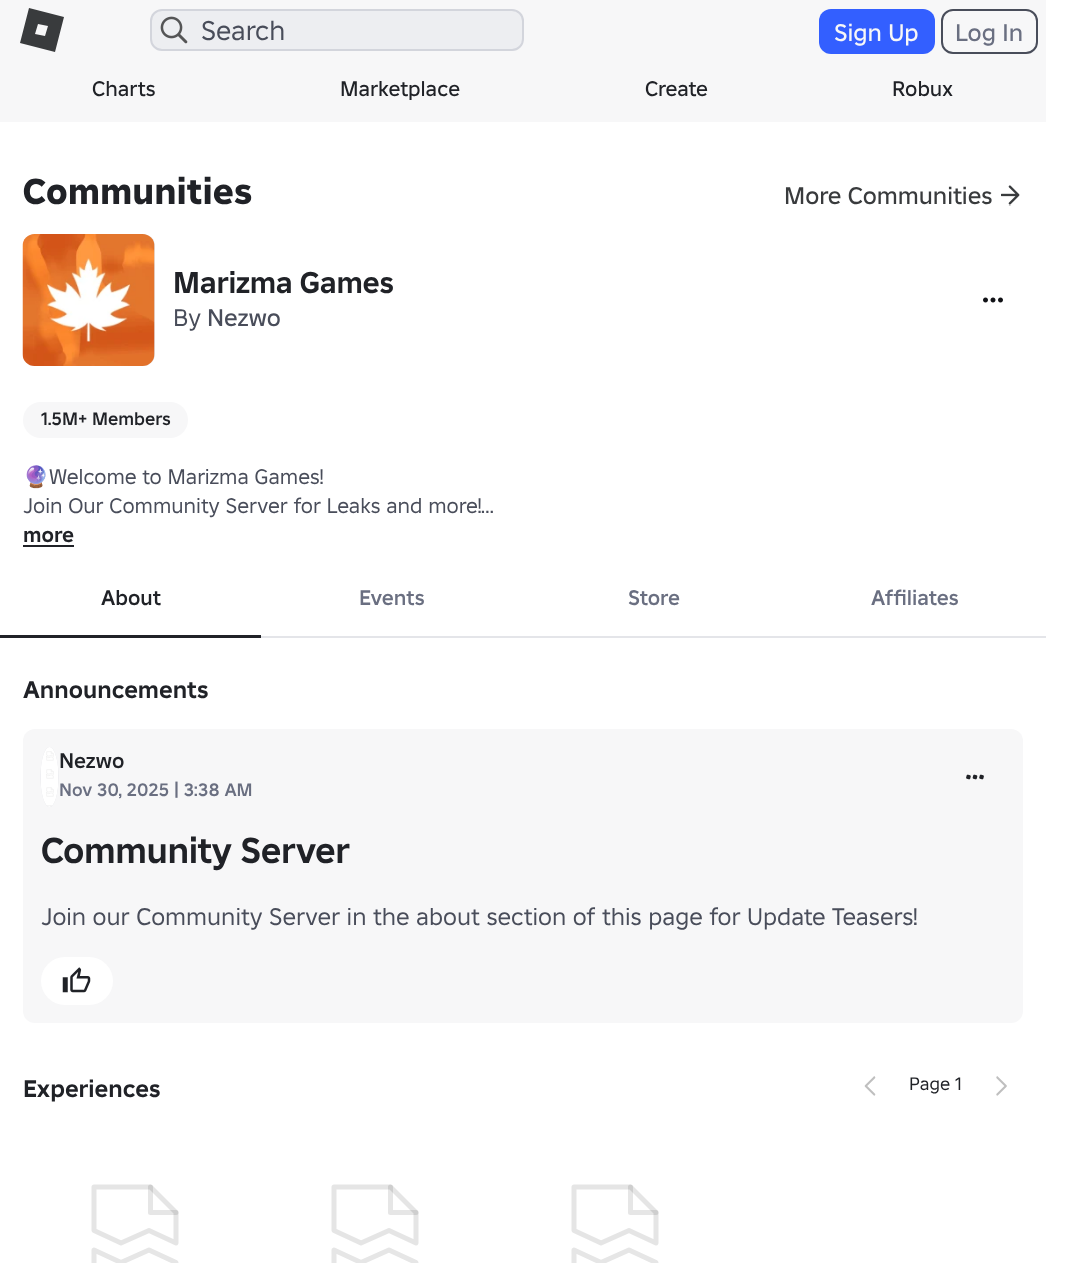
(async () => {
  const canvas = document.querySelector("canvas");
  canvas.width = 1067;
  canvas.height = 1263;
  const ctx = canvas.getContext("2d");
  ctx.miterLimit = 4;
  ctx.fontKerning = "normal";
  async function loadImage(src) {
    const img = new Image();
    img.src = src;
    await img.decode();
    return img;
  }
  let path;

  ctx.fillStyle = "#ffffff";
  ctx.fillRect(0, 0, 1067, 1263);
  ctx.fillStyle = "#f7f7f8";
  ctx.fillRect(0, 0, 1046, 122);
  ctx.fillStyle = "#393b3d";
  path = new Path2D("M29 8L20 43L55 52L64 17ZM45 36L35 34L38 24L48 26Z");
  ctx.fill(path);
  ctx.fillStyle = "#ffffff";
  ctx.beginPath();
  ctx.roundRect(150, 9, 374, 42, 12);
  ctx.fill();
  ctx.fillStyle = "rgba(27, 37, 75, 0.08)";
  ctx.beginPath();
  ctx.roundRect(150, 9, 374, 42, 12);
  ctx.fill();
  ctx.beginPath();
  ctx.roundRect(151, 10, 372, 40, 11);
  ctx.strokeStyle = "rgba(27, 37, 75, 0.12)";
  ctx.lineWidth = 2;
  ctx.stroke();
  ctx.drawImage(await loadImage("img/1.png"), 160, 16, 28, 28);
  ctx.fillStyle = "#335fff";
  ctx.beginPath();
  ctx.roundRect(819, 9, 116, 45, 12);
  ctx.fill();
  ctx.beginPath();
  ctx.roundRect(942, 10, 95, 43, 11);
  ctx.strokeStyle = "#494d5a";
  ctx.stroke();
  ctx.drawImage(await loadImage("img/2.png"), 1001, 185, 19, 21);
  ctx.fillStyle = "#e4e5e9";
  ctx.beginPath();
  ctx.roundRect(23, 234, 132, 132, 12);
  ctx.fill();
  ctx.drawImage(await loadImage("img/3.png"), 22, 234, 133, 132);
  ctx.drawImage(await loadImage("img/4.png"), 983, 297, 20, 6);
  ctx.fillStyle = "#f7f7f8";
  ctx.beginPath();
  ctx.roundRect(23, 402, 165, 36, 18);
  ctx.fill();
  for (const [x, y, w, h, color] of [
    [23, 545, 51, 2, "#202227"],
    [0, 635, 261, 3, "#202227"],
    [261, 636, 785, 2, "#e4e5e9"],
  ]) {
    ctx.fillStyle = color;
    ctx.fillRect(x, y, w, h);
  }
  ctx.fillStyle = "#f7f7f8";
  ctx.beginPath();
  ctx.roundRect(23, 729, 1000, 294, 12);
  ctx.fill();
  ctx.fillStyle = "#dddee3";
  ctx.beginPath();
  ctx.ellipse(49.5, 777, 9, 30, 0, 0, Math.PI * 2);
  ctx.fill();
  ctx.drawImage(await loadImage("img/5.png"), 40, 747, 19, 60);
  ctx.drawImage(await loadImage("img/6.png"), 966, 774, 18, 6);
  ctx.fillStyle = "#ffffff";
  ctx.beginPath();
  ctx.roundRect(41, 957, 72, 48, 24);
  ctx.fill();
  ctx.drawImage(await loadImage("img/7.png"), 62, 967, 29, 26);
  ctx.drawImage(await loadImage("img/8.png"), 864, 1076, 12, 20);
  ctx.drawImage(await loadImage("img/9.png"), 996, 1076, 11, 20);
  path = new Path2D("M150.5 1187V1212.5H176M94 1250V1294H176V1262.5L149 1250L121 1262.5Z");
  ctx.strokeStyle = "#e6e6e6";
  ctx.lineWidth = 5;
  ctx.lineCap = "round";
  ctx.lineJoin = "round";
  ctx.stroke(path);
  path = new Path2D("M176 1212.5L150.5 1187H94V1230.5L121 1243L149 1230.5L176 1243Z");
  ctx.strokeStyle = "rgba(0, 0, 0, 0.1)";
  ctx.stroke(path);
  path = new Path2D("M390.5 1187V1212.5H416M334 1250V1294H416V1262.5L389 1250L361 1262.5Z");
  ctx.strokeStyle = "#e6e6e6";
  ctx.stroke(path);
  path = new Path2D("M416 1212.5L390.5 1187H334V1230.5L361 1243L389 1230.5L416 1243Z");
  ctx.strokeStyle = "rgba(0, 0, 0, 0.1)";
  ctx.stroke(path);
  path = new Path2D("M630.5 1187V1212.5H656M574 1250V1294H656V1262.5L629 1250L601 1262.5Z");
  ctx.strokeStyle = "#e6e6e6";
  ctx.stroke(path);
  path = new Path2D("M656 1212.5L630.5 1187H574V1230.5L601 1243L629 1230.5L656 1243Z");
  ctx.strokeStyle = "rgba(0, 0, 0, 0.1)";
  ctx.stroke(path);
  ctx.font = "27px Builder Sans";
  ctx.fillStyle = "#494d5a";
  ctx.fillText("Search", 201, 40);
  ctx.font = "500 24px Builder Sans";
  ctx.fillStyle = "#f7f7f8";
  ctx.fillText("Sign Up", 834, 41);
  ctx.fillStyle = "#6a6f81";
  ctx.fillText("Log In", 955, 41);
  ctx.font = "500 21px Builder Sans";
  ctx.fillStyle = "#202227";
  for (const [text, x, y] of [
    ["Charts", 92, 96],
    ["Marketplace", 340, 96],
    ["Create", 645, 96],
    ["Robux", 892, 96],
  ]) {
    ctx.fillText(text, x, y);
  }
  ctx.font = "800 36px Builder Sans";
  ctx.fillText("Communities", 23, 204);
  ctx.font = "500 24px Builder Sans";
  ctx.fillStyle = "#393b3d";
  ctx.fillText("More Communities", 784, 204);
  ctx.letterSpacing = "-0.25px";
  ctx.font = "bold 30px Builder Sans";
  ctx.fillStyle = "#202227";
  ctx.fillText("Marizma Games", 173, 293);
  ctx.letterSpacing = "0px";
  ctx.font = "24px Builder Sans";
  ctx.fillStyle = "#494d5a";
  ctx.fillText("By", 173, 326);
  ctx.font = "500 24px Builder Sans";
  ctx.fillText("Nezwo", 207, 326);
  ctx.font = "600 18px Builder Sans";
  ctx.fillStyle = "#202227";
  ctx.fillText("1.5M+ Members", 41, 425);
  ctx.save();
  ctx.beginPath();
  ctx.rect(23, 462, 1000, 60);
  ctx.clip();
  ctx.font = "21px Noto Color Emoji";
  ctx.fillStyle = "#494d5a";
  ctx.fillText("🔮", 23, 484);
  ctx.restore();
  ctx.font = "21px Builder Sans";
  ctx.fillStyle = "#494d5a";
  ctx.fillText("Welcome to Marizma Games!", 49, 484);
  ctx.fillText("Join Our Community Server for Leaks and more!…", 23, 513);
  ctx.font = "bold 21px Builder Sans";
  ctx.fillStyle = "#202227";
  ctx.fillText("more", 23, 542);
  ctx.font = "600 21px Builder Sans";
  ctx.fillText("About", 101, 605);
  ctx.fillStyle = "#6a6f81";
  for (const [text, x, y] of [
    ["Events", 359, 605],
    ["Store", 628, 605],
    ["Affiliates", 871, 605],
  ]) {
    ctx.fillText(text, x, y);
  }
  ctx.font = "bold 24px Builder Sans";
  ctx.fillStyle = "#202227";
  ctx.fillText("Announcements", 23, 698);
  ctx.font = "600 21px Builder Sans";
  ctx.fillText("Nezwo", 59, 768);
  ctx.font = "600 18px Builder Sans";
  ctx.fillStyle = "#6a6f81";
  ctx.fillText("Nov 30, 2025 | 3:38 AM", 59, 796);
  ctx.letterSpacing = "-0.4px";
  ctx.font = "bold 36px Builder Sans";
  ctx.fillStyle = "#202227";
  ctx.fillText("Community Server", 41, 863);
  ctx.letterSpacing = "0px";
  ctx.font = "24px Builder Sans";
  ctx.fillStyle = "#494d5a";
  ctx.fillText("Join our Community Server in the about section of this page for Update Teasers!", 41, 925);
  ctx.font = "bold 24px Builder Sans";
  ctx.fillStyle = "#202227";
  ctx.fillText("Experiences", 23, 1097);
  ctx.font = "18px Builder Sans";
  ctx.fillText("Page 1", 909, 1090);
})();
